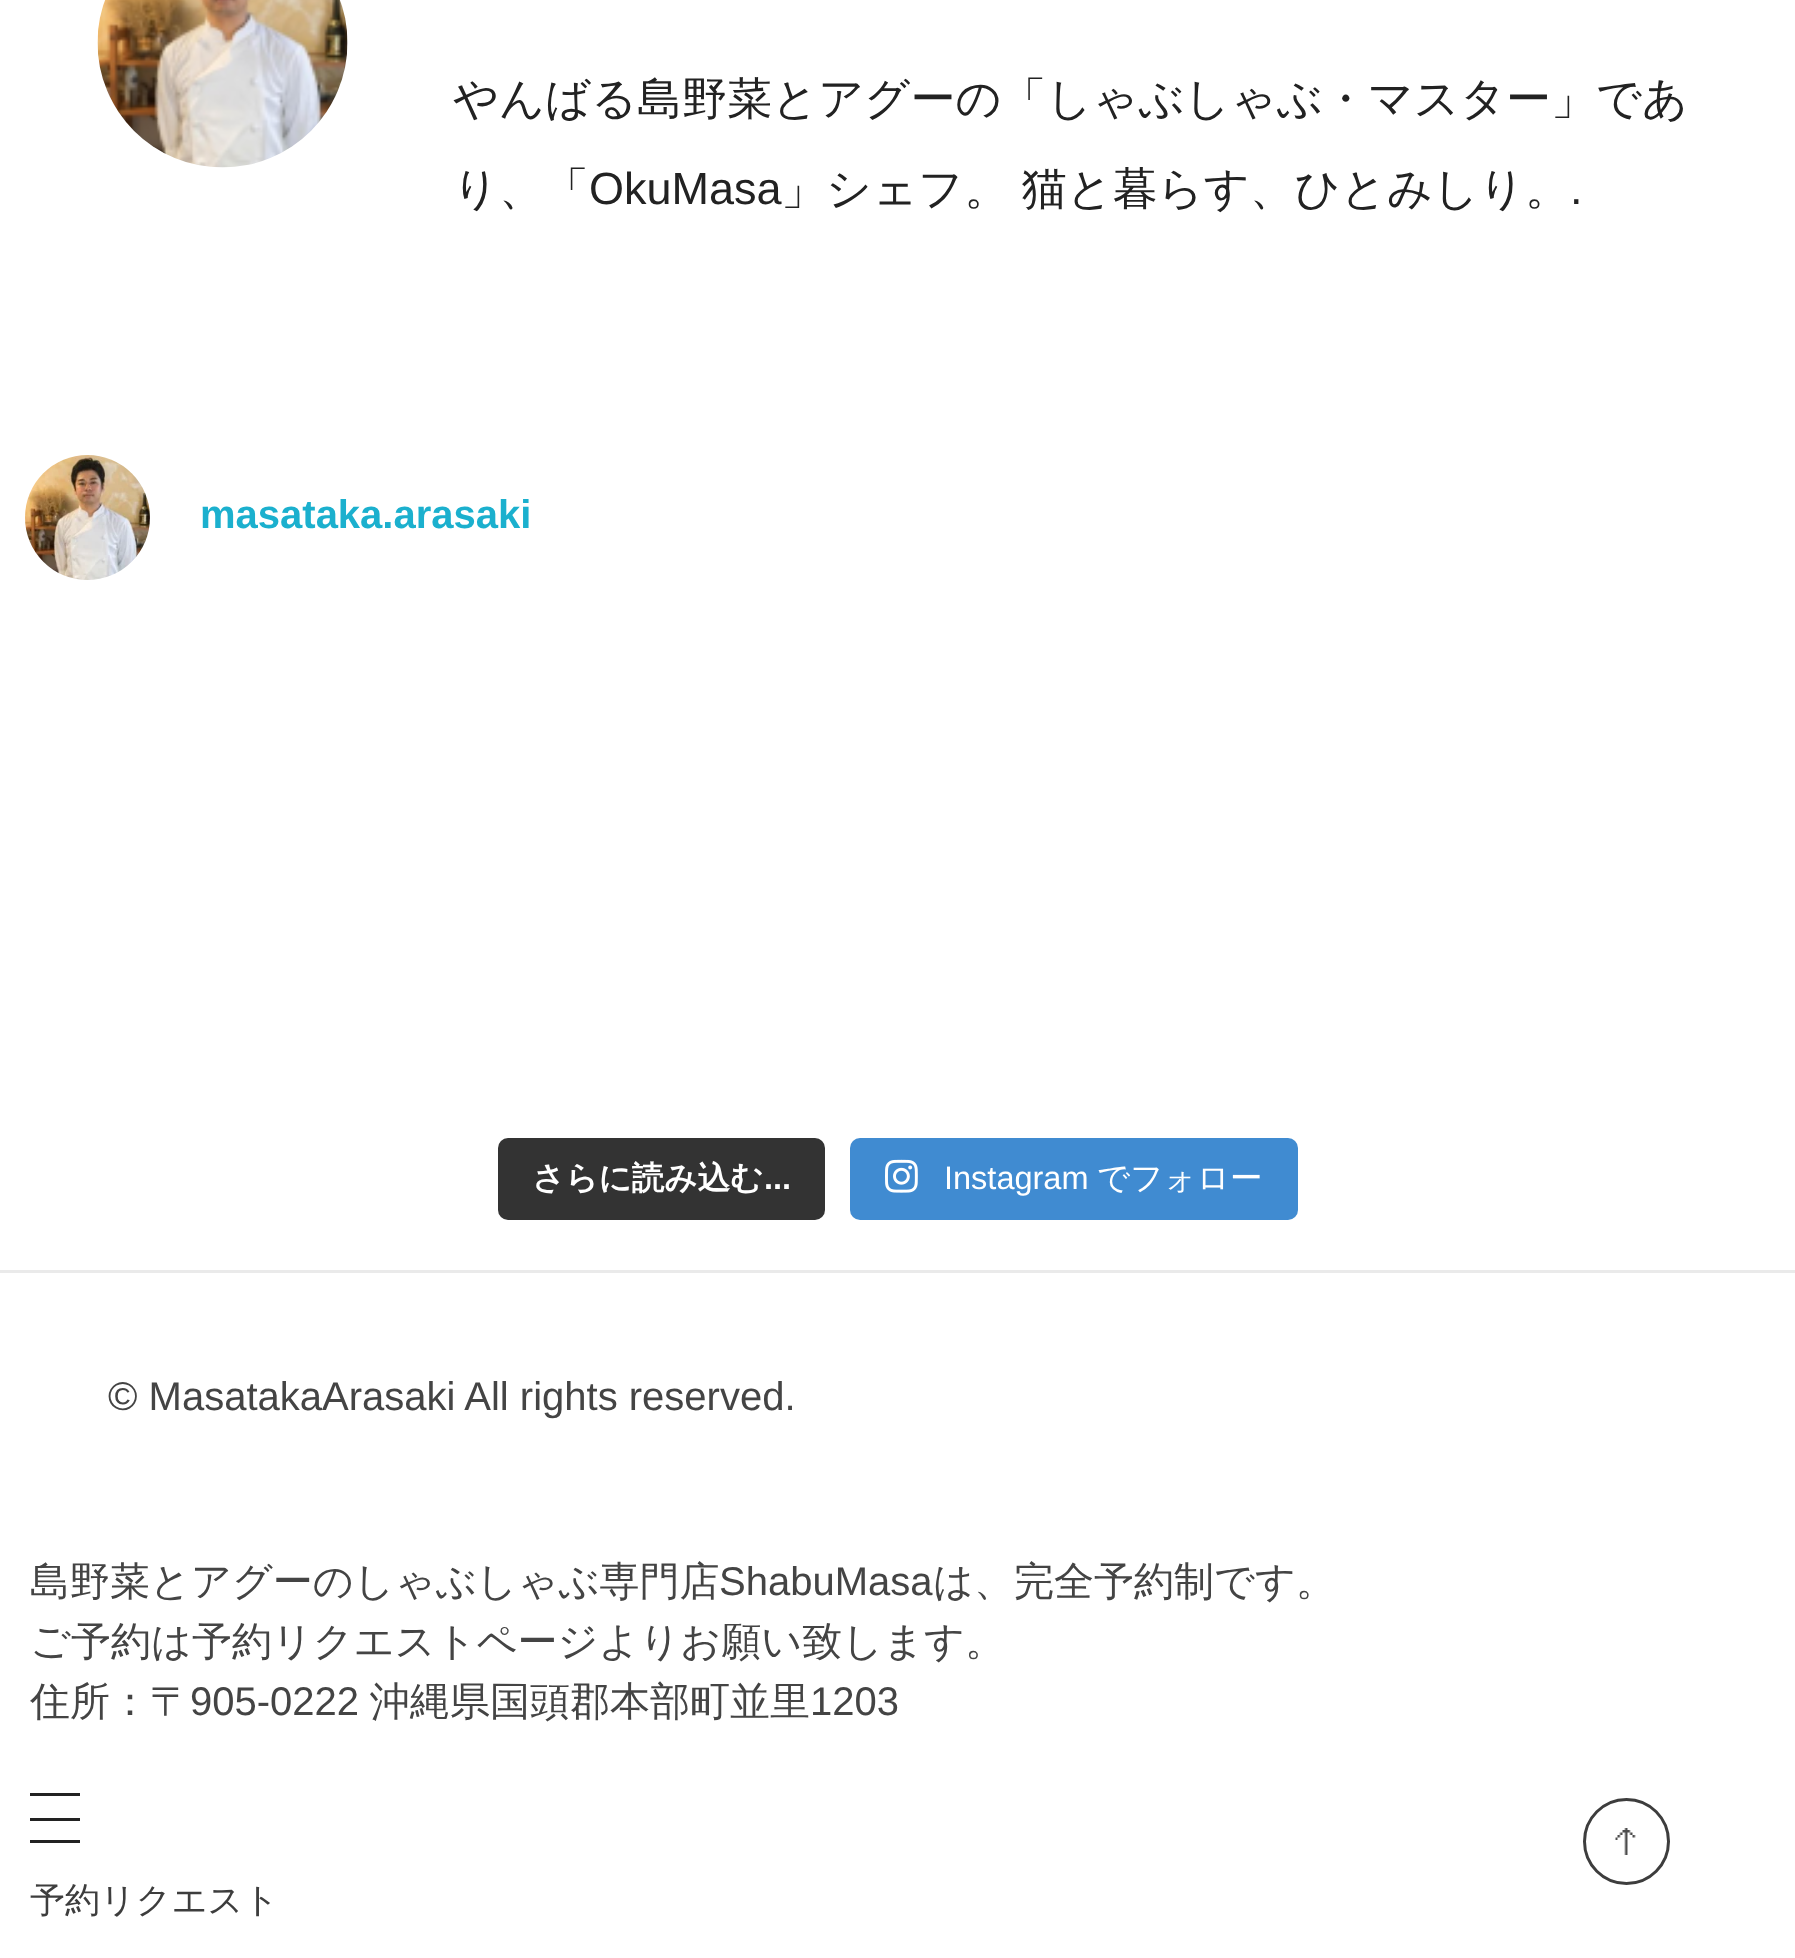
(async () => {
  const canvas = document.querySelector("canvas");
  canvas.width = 1795;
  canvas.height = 1958;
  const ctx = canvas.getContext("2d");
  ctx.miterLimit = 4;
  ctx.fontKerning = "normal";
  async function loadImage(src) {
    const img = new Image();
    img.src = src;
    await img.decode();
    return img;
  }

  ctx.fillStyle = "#ffffff";
  ctx.fillRect(0, 0, 1795, 1958);
  ctx.drawImage(await loadImage("img/1.png"), 97, 0, 251, 168);
  ctx.drawImage(await loadImage("img/2.png"), 25, 455, 125, 125);
  ctx.fillStyle = "#333333";
  ctx.beginPath();
  ctx.roundRect(498, 1138, 327, 82, 10);
  ctx.fill();
  ctx.fillStyle = "#408bd1";
  ctx.beginPath();
  ctx.roundRect(850, 1138, 448, 82, 10);
  ctx.fill();
  ctx.drawImage(await loadImage("img/3.png"), 885, 1159, 33, 34);
  for (const [x, y, w, h, color] of [
    [0, 1270, 1795, 3, "#eaeaea"],
    [30, 1793, 50, 3, "#222222"],
    [30, 1818, 50, 3, "#222222"],
    [30, 1840, 50, 3, "#222222"],
  ]) {
    ctx.fillStyle = color;
    ctx.fillRect(x, y, w, h);
  }
  ctx.beginPath();
  ctx.arc(1626.5, 1841.5, 42, 0, Math.PI * 2);
  ctx.strokeStyle = "#3d3d3d";
  ctx.lineWidth = 3;
  ctx.stroke();
  ctx.drawImage(await loadImage("img/4.png"), 1615, 1828, 21, 27);
  ctx.font = "500 45px WenQuanYi Zen Hei";
  ctx.fillText("やんばる島野菜とアグーの「しゃぶしゃぶ・マスター」であ", 453, 114);
  ctx.fillText("り、「", 453, 204);
  ctx.font = "45px Liberation Sans";
  ctx.fillText("OkuMasa", 589, 204);
  ctx.wordSpacing = "-1px";
  ctx.font = "500 45px WenQuanYi Zen Hei";
  ctx.fillText("」シェフ。 猫と暮らす、ひとみしり。", 781, 204);
  ctx.wordSpacing = "0px";
  ctx.font = "45px Liberation Sans";
  ctx.fillText(".", 1570, 204);
  ctx.font = "bold 40px Liberation Sans";
  ctx.fillStyle = "#1bb0ce";
  ctx.fillText("masataka.arasaki", 200, 528);
  ctx.font = "bold 32.5px WenQuanYi Zen Hei";
  ctx.fillStyle = "#ffffff";
  ctx.fillText("さらに読み込む", 532, 1189);
  ctx.font = "bold 32.5px Liberation Sans";
  ctx.fillText("...", 764, 1189);
  ctx.font = "32.5px Liberation Sans";
  ctx.fillText("Instagram", 944, 1189);
  ctx.font = "500 32.5px WenQuanYi Zen Hei";
  ctx.fillText("でフォロー", 1097, 1189);
  ctx.font = "40px Liberation Sans";
  ctx.fillStyle = "#444444";
  ctx.fillText("© MasatakaArasaki All rights reserved.", 108, 1410);
  ctx.font = "500 40px WenQuanYi Zen Hei";
  ctx.fillText("島野菜とアグーのしゃぶしゃぶ専門店", 30, 1595);
  ctx.font = "40px Liberation Sans";
  ctx.fillText("ShabuMasa", 719, 1595);
  ctx.font = "500 40px WenQuanYi Zen Hei";
  for (const [text, x, y] of [
    ["は、完全予約制です。", 933, 1595],
    ["ご予約は予約リクエストページよりお願い致します。", 30, 1655],
    ["住所：〒", 30, 1715],
  ]) {
    ctx.fillText(text, x, y);
  }
  ctx.font = "40px Liberation Sans";
  ctx.fillText("905-0222", 190, 1715);
  ctx.font = "500 40px WenQuanYi Zen Hei";
  ctx.fillText("沖縄県国頭郡本部町並里", 370, 1715);
  ctx.font = "40px Liberation Sans";
  ctx.fillText("1203", 810, 1715);
  ctx.font = "500 35px WenQuanYi Zen Hei";
  ctx.fillStyle = "#3d3d3d";
  ctx.fillText("予約リクエスト", 30, 1912);
})();
